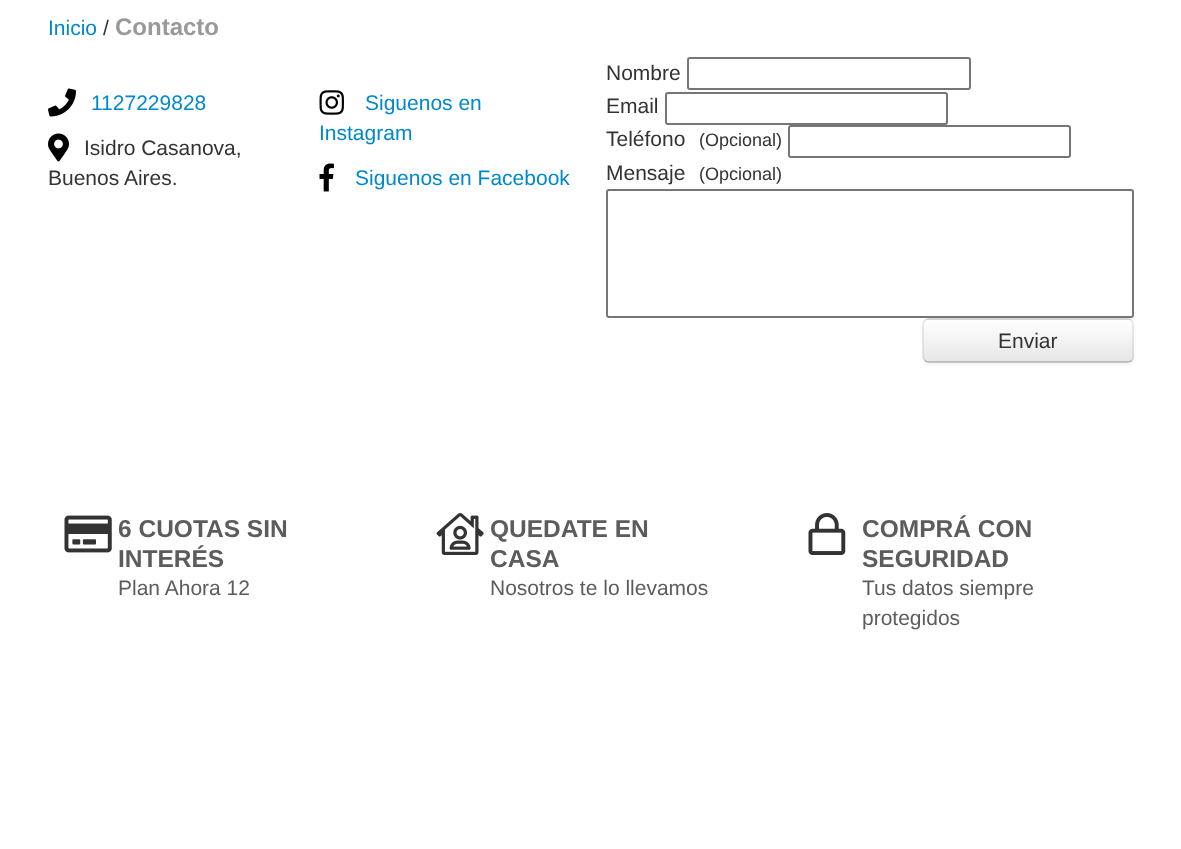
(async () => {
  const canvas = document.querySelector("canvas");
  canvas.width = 1181;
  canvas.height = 849;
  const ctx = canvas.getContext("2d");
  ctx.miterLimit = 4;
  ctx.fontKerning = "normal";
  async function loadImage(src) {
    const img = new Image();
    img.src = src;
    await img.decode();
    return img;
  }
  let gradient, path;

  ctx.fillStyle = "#ffffff";
  ctx.fillRect(0, 0, 1181, 849);
  ctx.drawImage(await loadImage("img/1.png"), 48, 88, 28, 29);
  ctx.drawImage(await loadImage("img/2.png"), 48, 133, 21, 29);
  ctx.drawImage(await loadImage("img/3.png"), 319, 90, 25, 25);
  ctx.drawImage(await loadImage("img/4.png"), 319, 163, 15, 29);
  ctx.beginPath();
  ctx.roundRect(688, 58, 282, 31, 2);
  ctx.strokeStyle = "#767676";
  ctx.lineWidth = 2;
  ctx.stroke();
  ctx.beginPath();
  ctx.roundRect(666, 93, 281, 31, 2);
  ctx.stroke();
  ctx.beginPath();
  ctx.roundRect(789, 126, 281, 31, 2);
  ctx.stroke();
  ctx.beginPath();
  ctx.roundRect(607, 190, 526, 127, 2);
  ctx.stroke();
  ctx.fillStyle = "rgba(0, 0, 0, 0.05)";
  ctx.filter = "blur(1.5px)";
  ctx.beginPath();
  ctx.roundRect(923, 320, 211, 45, 6);
  ctx.fill();
  ctx.filter = "none";
  ctx.save();
  ctx.beginPath();
  ctx.roundRect(923, 318, 211, 45, 6);
  ctx.clip();
  gradient = ctx.createLinearGradient(1028, 278, 1028, 320);
  gradient.addColorStop(0, "#ffffff");
  gradient.addColorStop(1, "#e6e6e6");
  ctx.fillStyle = gradient;
  ctx.fillRect(923, 318, 211, 2);
  gradient = ctx.createLinearGradient(1028, 320, 1028, 362);
  gradient.addColorStop(0, "#ffffff");
  gradient.addColorStop(1, "#e6e6e6");
  ctx.fillStyle = gradient;
  ctx.fillRect(923, 320, 211, 42);
  gradient = ctx.createLinearGradient(1028, 362, 1028, 404);
  gradient.addColorStop(0, "#ffffff");
  gradient.addColorStop(1, "#e6e6e6");
  ctx.fillStyle = gradient;
  ctx.fillRect(923, 362, 211, 1);
  ctx.restore();
  ctx.fillStyle = "rgba(255, 255, 255, 0.2)";
  path = new Path2D("M928 321H1128C1130 321 1132 323 1132 326V358L1131 361C1132 360 1133 358 1133 357V325C1133 322 1131 320 1128 320H929C926 320 924 322 924 325V326C924 323 926 321 928 321Z");
  ctx.fill(path);
  path = new Path2D("M1131.5 360.5C1130.5 361.5 1129.5 362 1128 362H928.5C927 362 926 361.5 925 360.5");
  ctx.strokeStyle = "#b3b3b3";
  ctx.lineWidth = 1.5;
  ctx.stroke(path);
  path = new Path2D("M925 360.5C924 359.5 923 358.5 923 357V324C923 322.5 924 321.5 925 320.5C926 319.5 927 319 928.5 319H1128C1129.5 319 1130.5 319.5 1131.5 320.5C1132.5 321.5 1133 322.5 1133 324V357C1133 358.5 1132.5 359.5 1131.5 360.5");
  ctx.strokeStyle = "rgba(0, 0, 0, 0.1)";
  ctx.stroke(path);
  ctx.drawImage(await loadImage("img/5.png"), 64, 515, 48, 38);
  ctx.drawImage(await loadImage("img/6.png"), 436, 513, 48, 42);
  ctx.drawImage(await loadImage("img/7.png"), 808, 513, 38, 42);
  ctx.font = "21px Liberation Sans";
  ctx.fillStyle = "#0088cc";
  ctx.fillText("Inicio", 48, 35);
  ctx.fillStyle = "#333333";
  ctx.fillText("/", 103, 35);
  ctx.font = "bold 24px Liberation Sans";
  ctx.fillStyle = "#999999";
  ctx.fillText("Contacto", 115, 35);
  ctx.font = "21px Liberation Sans";
  ctx.fillStyle = "#0088cc";
  ctx.fillText("1127229828", 91, 110);
  ctx.fillStyle = "#333333";
  ctx.fillText("Isidro Casanova,", 84, 155);
  ctx.fillText("Buenos Aires.", 48, 185);
  ctx.fillStyle = "#0088cc";
  for (const [text, x, y] of [
    ["Siguenos en", 365, 110],
    ["Instagram", 319, 140],
    ["Siguenos en Facebook", 355, 185],
  ]) {
    ctx.fillText(text, x, y);
  }
  ctx.fillStyle = "#333333";
  for (const [text, x, y] of [
    ["Nombre", 606, 80],
    ["Email", 606, 113],
    ["Teléfono", 606, 146],
  ]) {
    ctx.fillText(text, x, y);
  }
  ctx.font = "18px Liberation Sans";
  ctx.fillText("(Opcional)", 699, 146);
  ctx.font = "21px Liberation Sans";
  ctx.fillText("Mensaje", 606, 180);
  ctx.font = "18px Liberation Sans";
  ctx.fillText("(Opcional)", 699, 180);
  ctx.font = "21px Liberation Sans";
  ctx.fillText("Enviar", 998, 348);
  ctx.font = "bold 24.5px Liberation Sans";
  ctx.fillStyle = "#5c5c5c";
  ctx.fillText("6 CUOTAS SIN", 118, 537);
  ctx.fillText("INTERÉS", 118, 567);
  ctx.font = "21px Liberation Sans";
  ctx.fillText("Plan Ahora 12", 118, 595);
  ctx.font = "bold 24.5px Liberation Sans";
  ctx.fillText("QUEDATE EN", 490, 537);
  ctx.fillText("CASA", 490, 567);
  ctx.font = "21px Liberation Sans";
  ctx.fillText("Nosotros te lo llevamos", 490, 595);
  ctx.font = "bold 24.5px Liberation Sans";
  ctx.fillText("COMPRÁ CON", 862, 537);
  ctx.fillText("SEGURIDAD", 862, 567);
  ctx.font = "21px Liberation Sans";
  ctx.fillText("Tus datos siempre", 862, 595);
  ctx.fillText("protegidos", 862, 625);
})();
